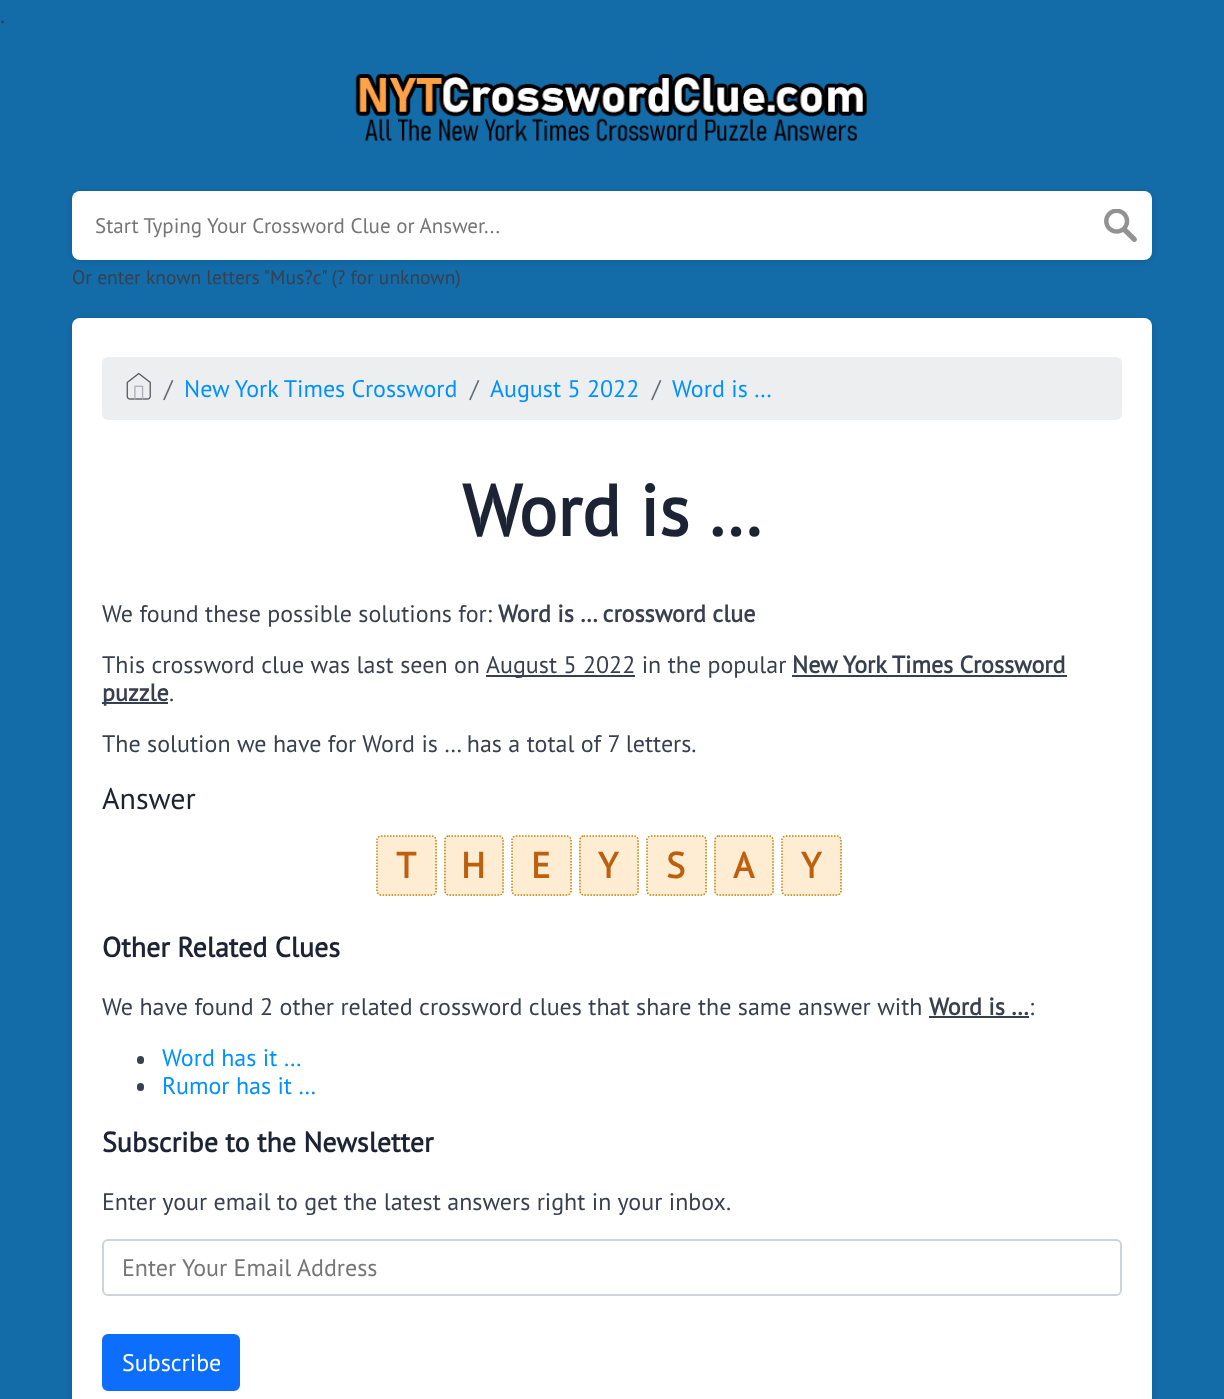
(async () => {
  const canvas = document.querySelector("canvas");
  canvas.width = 1224;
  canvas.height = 1399;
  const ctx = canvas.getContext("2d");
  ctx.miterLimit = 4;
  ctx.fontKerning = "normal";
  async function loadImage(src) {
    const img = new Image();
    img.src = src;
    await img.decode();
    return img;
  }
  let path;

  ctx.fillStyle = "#136ba8";
  ctx.fillRect(0, 0, 1224, 1399);
  ctx.drawImage(await loadImage("img/1.png"), 355, 73, 512, 69);
  ctx.fillStyle = "rgba(0, 0, 0, 0.1)";
  ctx.filter = "blur(3px)";
  ctx.beginPath();
  ctx.roundRect(72, 192, 1080, 69, 8);
  ctx.fill();
  ctx.filter = "none";
  ctx.fillStyle = "#ffffff";
  ctx.beginPath();
  ctx.roundRect(72, 191, 1080, 69, 8);
  ctx.fill();
  ctx.drawImage(await loadImage("img/2.png"), 1104, 209, 33, 33);
  ctx.fillStyle = "rgba(0, 0, 0, 0.1)";
  ctx.filter = "blur(3px)";
  ctx.beginPath();
  ctx.roundRect(72, 320, 1080, 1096, 8);
  ctx.fill();
  ctx.filter = "none";
  ctx.fillStyle = "#ffffff";
  ctx.beginPath();
  ctx.roundRect(72, 318, 1080, 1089, 8);
  ctx.fill();
  ctx.fillStyle = "#eceeef";
  ctx.beginPath();
  ctx.roundRect(102, 357, 1020, 63, 6);
  ctx.fill();
  ctx.drawImage(await loadImage("img/3.png"), 126, 372, 25, 28);
  for (const [x, y, w, h, color] of [
    [486, 675, 149, 2, "#383f4e"],
    [792, 675, 275, 2, "#383f4e"],
    [102, 702, 66, 2, "#383f4e"],
  ]) {
    ctx.fillStyle = color;
    ctx.fillRect(x, y, w, h);
  }
  ctx.fillStyle = "#ffedd3";
  ctx.beginPath();
  ctx.roundRect(377, 836, 60, 60, 5);
  ctx.fill();
  path = new Path2D("M381 836H432C434 836 436 838 436 840V891C436 893 434 895 432 895H381C379 895 377 893 377 891V840C377 838 379 836 381 836Z");
  ctx.strokeStyle = "#bc860e";
  ctx.lineWidth = 1.5;
  ctx.setLineDash([1.5, 1.5]);
  ctx.stroke(path);
  ctx.beginPath();
  ctx.roundRect(444, 836, 60, 60, 5);
  ctx.fill();
  path = new Path2D("M448.5 836H499.5C501.5 836 503 838 503 840V891C503 893 501.5 895 499.5 895H448.5C446.5 895 445 893 445 891V840C445 838 446.5 836 448.5 836Z");
  ctx.stroke(path);
  ctx.beginPath();
  ctx.roundRect(512, 836, 60, 60, 5);
  ctx.fill();
  path = new Path2D("M516 836H567C569 836 571 838 571 840V891C571 893 569 895 567 895H516C514 895 512 893 512 891V840C512 838 514 836 516 836Z");
  ctx.stroke(path);
  ctx.beginPath();
  ctx.roundRect(579, 836, 60, 60, 5);
  ctx.fill();
  path = new Path2D("M583.5 836H634.5C636.5 836 638 838 638 840V891C638 893 636.5 895 634.5 895H583.5C581.5 895 580 893 580 891V840C580 838 581.5 836 583.5 836Z");
  ctx.stroke(path);
  ctx.beginPath();
  ctx.roundRect(647, 836, 60, 60, 5);
  ctx.fill();
  path = new Path2D("M651 836H702C704 836 706 838 706 840V891C706 893 704 895 702 895H651C649 895 647 893 647 891V840C647 838 649 836 651 836Z");
  ctx.stroke(path);
  ctx.beginPath();
  ctx.roundRect(714, 836, 60, 60, 5);
  ctx.fill();
  path = new Path2D("M718.5 836H769.5C771.5 836 773 838 773 840V891C773 893 771.5 895 769.5 895H718.5C716.5 895 715 893 715 891V840C715 838 716.5 836 718.5 836Z");
  ctx.stroke(path);
  ctx.beginPath();
  ctx.roundRect(782, 836, 60, 60, 5);
  ctx.fill();
  path = new Path2D("M786 836H837C839 836 841 838 841 840V891C841 893 839 895 837 895H786C784 895 782 893 782 891V840C782 838 784 836 786 836Z");
  ctx.stroke(path);
  ctx.fillStyle = "#383f4e";
  ctx.fillRect(929, 1016, 100, 2);
  ctx.beginPath();
  ctx.roundRect(137, 1056, 7, 8, 3.5);
  ctx.fill();
  ctx.beginPath();
  ctx.roundRect(137, 1083, 7, 8, 3.5);
  ctx.fill();
  ctx.beginPath();
  ctx.roundRect(103, 1240, 1018, 55, 5);
  ctx.strokeStyle = "#ced4da";
  ctx.lineWidth = 2;
  ctx.setLineDash([]);
  ctx.stroke();
  ctx.fillStyle = "#0d6efd";
  ctx.beginPath();
  ctx.roundRect(103, 1335, 136, 55, 5);
  ctx.fill();
  ctx.strokeStyle = "#0d6efd";
  ctx.stroke();
  ctx.font = "24px PT Sans";
  ctx.fillStyle = "#383f4e";
  ctx.fillText(".", 0, 23);
  ctx.font = "21px PT Sans";
  ctx.fillStyle = "#757575";
  ctx.fillText("Start Typing Your Crossword Clue or Answer...", 95, 233);
  ctx.font = "19.5px PT Sans";
  ctx.fillStyle = "#383f4e";
  ctx.fillText("Or enter known letters \"Mus?c\" (? for unknown)", 72, 284);
  ctx.font = "24px PT Sans";
  ctx.fillStyle = "#636c72";
  ctx.fillText("/", 164, 397);
  ctx.fillStyle = "#0091ff";
  ctx.fillText("New York Times Crossword", 184, 397);
  ctx.fillStyle = "#636c72";
  ctx.fillText("/", 470, 397);
  ctx.fillStyle = "#0091ff";
  ctx.fillText("August 5 2022", 490, 397);
  ctx.fillStyle = "#636c72";
  ctx.fillText("/", 652, 397);
  ctx.fillStyle = "#0091ff";
  ctx.fillText("Word is …", 672, 397);
  ctx.font = "bold 72px PT Sans";
  ctx.fillStyle = "#1c2334";
  ctx.fillText("Word is …", 462, 536);
  ctx.font = "24px PT Sans";
  ctx.fillStyle = "#383f4e";
  ctx.fillText("We found these possible solutions for:", 102, 622);
  ctx.font = "bold 24px PT Sans";
  ctx.fillText("Word is … crossword clue", 498, 622);
  ctx.font = "24px PT Sans";
  ctx.fillText("This crossword clue was last seen on", 102, 673);
  ctx.fillText("August 5 2022 in the popular", 486, 673);
  ctx.font = "bold 24px PT Sans";
  ctx.fillText("New York Times Crossword", 792, 673);
  ctx.fillText("puzzle", 102, 701);
  ctx.font = "24px PT Sans";
  ctx.fillText(".", 169, 701);
  ctx.fillText("The solution we have for Word is … has a total of 7 letters.", 102, 752);
  ctx.font = "30px PT Sans";
  ctx.fillStyle = "#1c2334";
  ctx.fillText("Answer", 102, 809);
  ctx.font = "bold 36px PT Sans";
  ctx.fillStyle = "#be5f0e";
  for (const [text, x, y] of [
    ["T", 396, 878],
    ["H", 461, 878],
    ["E", 531, 878],
    ["Y", 598, 878],
    ["S", 666, 878],
    ["A", 733, 878],
    ["Y", 801, 878],
  ]) {
    ctx.fillText(text, x, y);
  }
  ctx.font = "bold 28px PT Sans";
  ctx.fillStyle = "#1c2334";
  ctx.fillText("Other Related Clues", 102, 957);
  ctx.font = "24px PT Sans";
  ctx.fillStyle = "#383f4e";
  ctx.fillText("We have found 2 other related crossword clues that share the same answer with", 102, 1015);
  ctx.font = "bold 24px PT Sans";
  ctx.fillText("Word is …", 929, 1015);
  ctx.font = "24px PT Sans";
  ctx.fillText(":", 1029, 1015);
  ctx.fillStyle = "#0091ff";
  ctx.fillText("Word has it …", 162, 1066);
  ctx.fillText("Rumor has it …", 162, 1094);
  ctx.font = "bold 28px PT Sans";
  ctx.fillStyle = "#1c2334";
  ctx.fillText("Subscribe to the Newsletter", 102, 1152);
  ctx.font = "24px PT Sans";
  ctx.fillStyle = "#383f4e";
  ctx.fillText("Enter your email to get the latest answers right in your inbox.", 102, 1210);
  ctx.fillStyle = "#757575";
  ctx.fillText("Enter Your Email Address", 122, 1276);
  ctx.fillStyle = "#ffffff";
  ctx.fillText("Subscribe", 122, 1371);
})();
